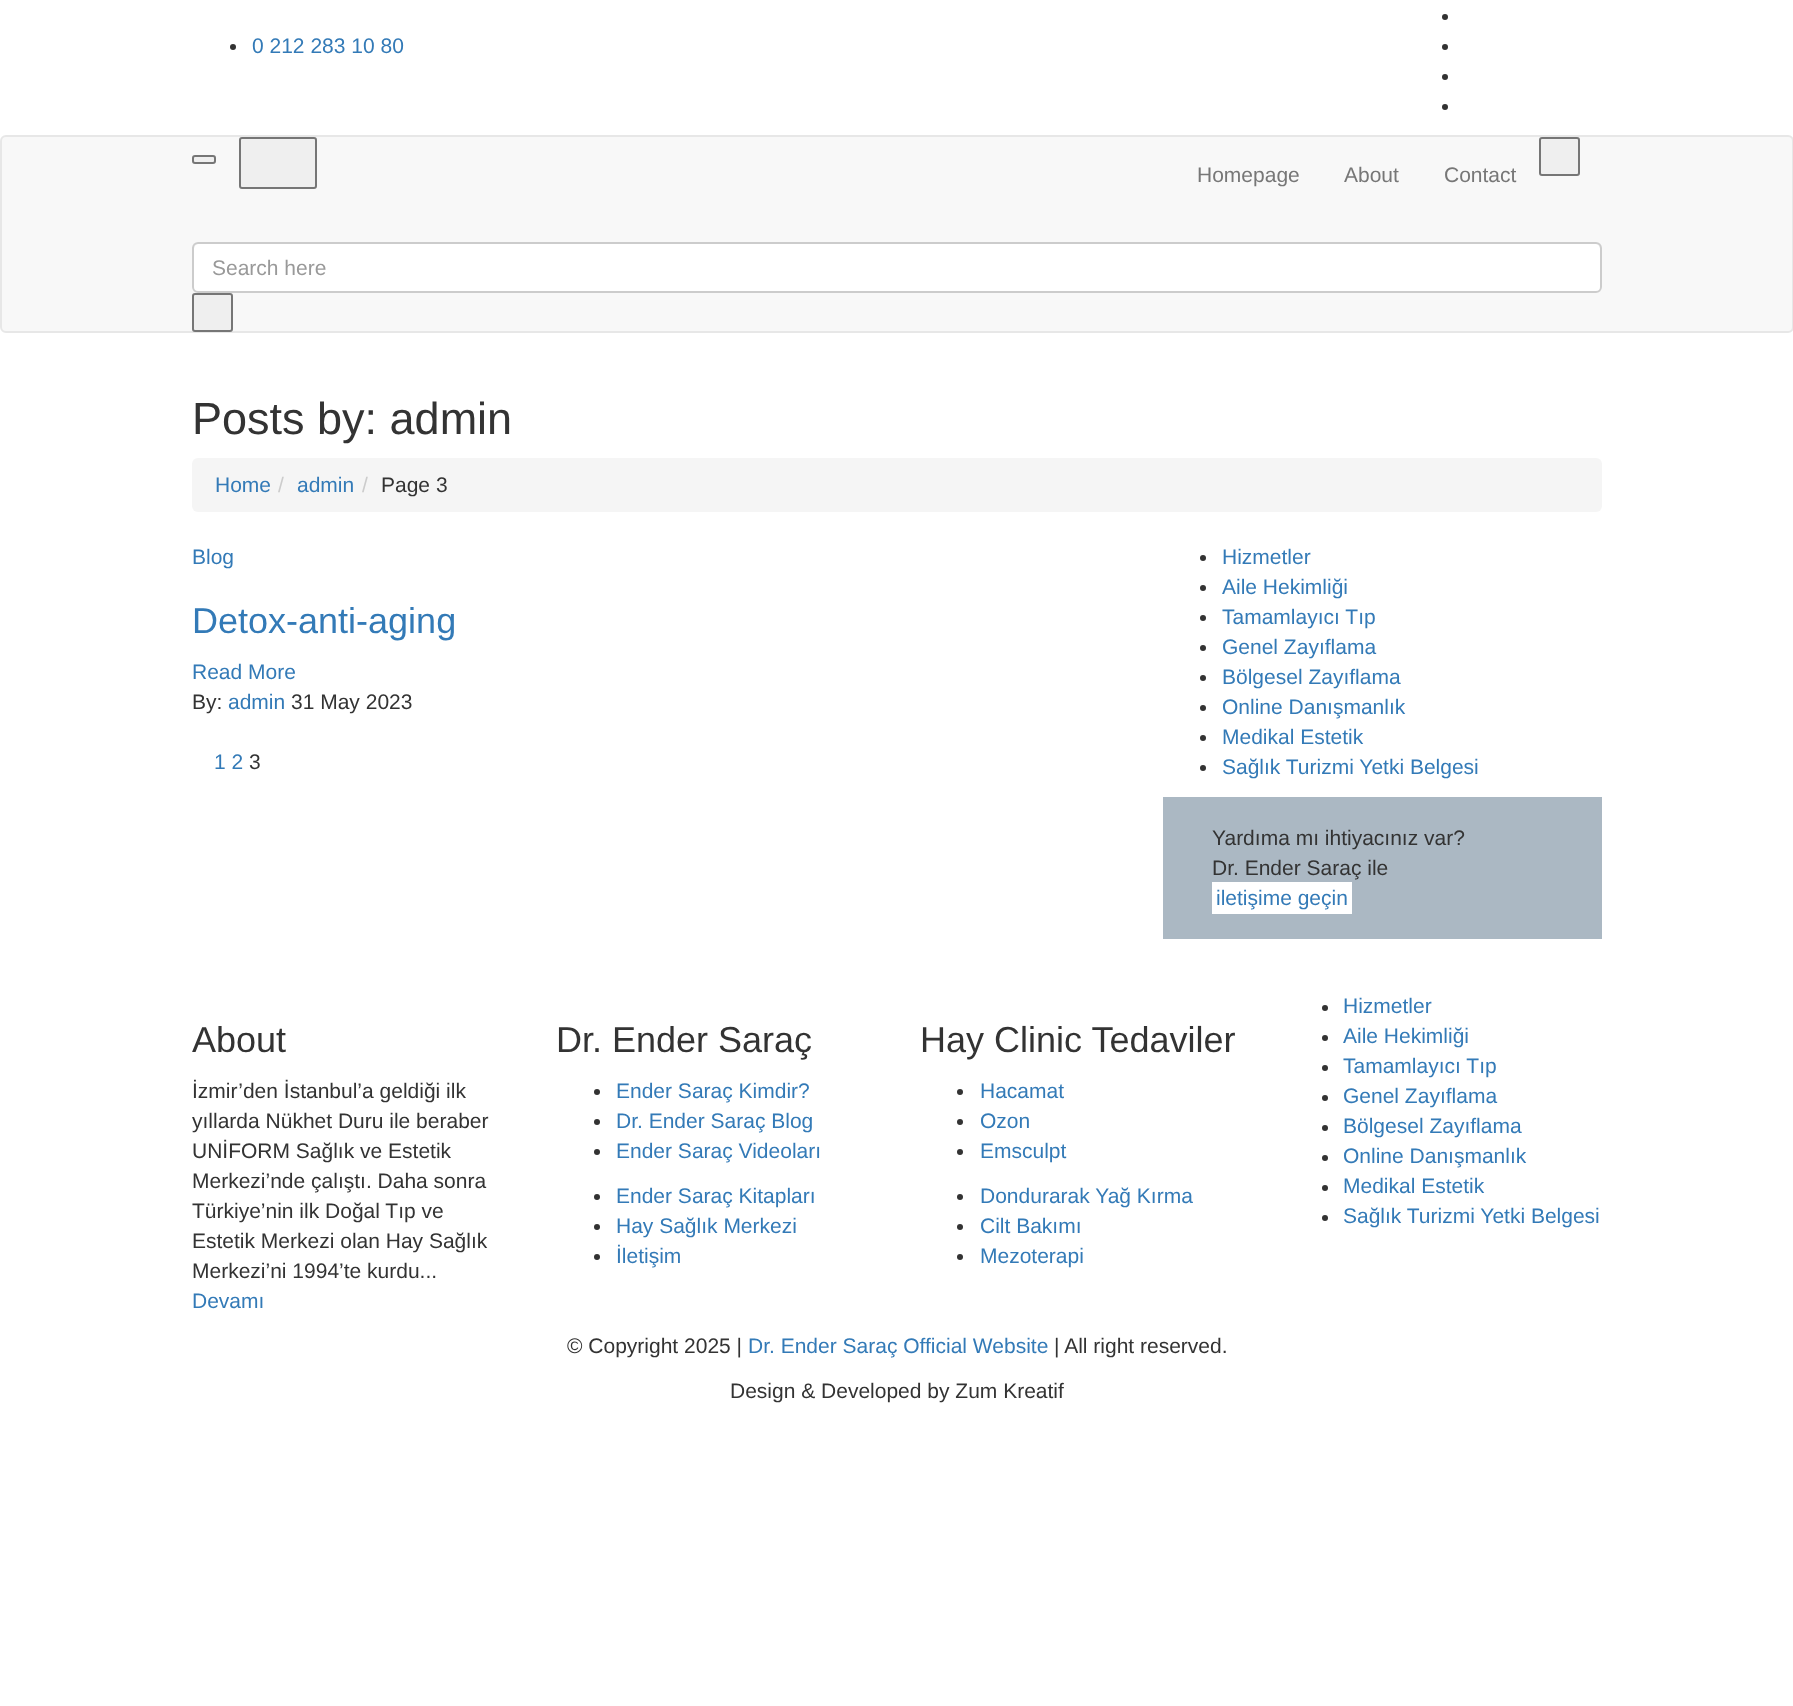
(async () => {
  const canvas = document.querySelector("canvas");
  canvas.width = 1793;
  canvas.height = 1706;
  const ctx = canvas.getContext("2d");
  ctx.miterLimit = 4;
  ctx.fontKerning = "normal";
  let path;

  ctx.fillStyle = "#ffffff";
  ctx.fillRect(0, 0, 1793, 1706);
  ctx.fillStyle = "#333333";
  ctx.beginPath();
  ctx.arc(233, 47, 3, 0, Math.PI * 2);
  ctx.fill();
  ctx.beginPath();
  ctx.arc(1445, 17, 3, 0, Math.PI * 2);
  ctx.fill();
  ctx.beginPath();
  ctx.arc(1445, 47, 3, 0, Math.PI * 2);
  ctx.fill();
  ctx.beginPath();
  ctx.arc(1445, 77, 3, 0, Math.PI * 2);
  ctx.fill();
  ctx.beginPath();
  ctx.arc(1445, 107, 3, 0, Math.PI * 2);
  ctx.fill();
  ctx.fillStyle = "#f8f8f8";
  ctx.beginPath();
  ctx.roundRect(1, 136, 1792, 196, 5);
  ctx.fill();
  ctx.strokeStyle = "#e7e7e7";
  ctx.lineWidth = 2;
  ctx.stroke();
  ctx.fillStyle = "#efefef";
  ctx.beginPath();
  ctx.roundRect(193, 156, 22, 7, 2);
  ctx.fill();
  ctx.strokeStyle = "#767676";
  ctx.stroke();
  ctx.beginPath();
  ctx.roundRect(1540, 138, 39, 37, 2);
  ctx.fill();
  ctx.stroke();
  ctx.beginPath();
  ctx.roundRect(240, 138, 76, 50, 2);
  ctx.fill();
  ctx.stroke();
  ctx.fillStyle = "#ffffff";
  ctx.beginPath();
  ctx.roundRect(192, 242, 1410, 51, 6);
  ctx.fill();
  ctx.fillStyle = "#ececec";
  path = new Path2D("M198 244H1596C1598 244 1600 247 1600 249V289C1601 288 1601 287 1601 286V248C1601 245 1599 243 1596 243H199C196 243 194 245 194 248V249C194 247 196 244 198 244Z");
  ctx.fill(path);
  ctx.beginPath();
  ctx.roundRect(193, 243, 1408, 49, 5);
  ctx.strokeStyle = "#cccccc";
  ctx.stroke();
  ctx.fillStyle = "#efefef";
  ctx.beginPath();
  ctx.roundRect(193, 294, 39, 37, 2);
  ctx.fill();
  ctx.strokeStyle = "#767676";
  ctx.stroke();
  ctx.fillStyle = "#f5f5f5";
  ctx.beginPath();
  ctx.roundRect(192, 458, 1410, 54, 6);
  ctx.fill();
  ctx.fillStyle = "#333333";
  ctx.beginPath();
  ctx.arc(1203, 558, 3, 0, Math.PI * 2);
  ctx.fill();
  ctx.beginPath();
  ctx.arc(1203, 588, 3, 0, Math.PI * 2);
  ctx.fill();
  ctx.beginPath();
  ctx.arc(1203, 618, 3, 0, Math.PI * 2);
  ctx.fill();
  ctx.beginPath();
  ctx.arc(1203, 648, 3, 0, Math.PI * 2);
  ctx.fill();
  ctx.beginPath();
  ctx.arc(1203, 678, 3, 0, Math.PI * 2);
  ctx.fill();
  ctx.beginPath();
  ctx.arc(1203, 708, 3, 0, Math.PI * 2);
  ctx.fill();
  ctx.beginPath();
  ctx.arc(1203, 738, 3, 0, Math.PI * 2);
  ctx.fill();
  ctx.beginPath();
  ctx.arc(1203, 768, 3, 0, Math.PI * 2);
  ctx.fill();
  ctx.fillStyle = "#abb8c3";
  ctx.fillRect(1163, 797, 439, 142);
  ctx.fillStyle = "#ffffff";
  ctx.fillRect(1212, 882, 140, 32);
  ctx.fillStyle = "#333333";
  ctx.beginPath();
  ctx.arc(597, 1092, 3, 0, Math.PI * 2);
  ctx.fill();
  ctx.beginPath();
  ctx.arc(597, 1122, 3, 0, Math.PI * 2);
  ctx.fill();
  ctx.beginPath();
  ctx.arc(597, 1152, 3, 0, Math.PI * 2);
  ctx.fill();
  ctx.beginPath();
  ctx.arc(597, 1197, 3, 0, Math.PI * 2);
  ctx.fill();
  ctx.beginPath();
  ctx.arc(597, 1227, 3, 0, Math.PI * 2);
  ctx.fill();
  ctx.beginPath();
  ctx.arc(597, 1257, 3, 0, Math.PI * 2);
  ctx.fill();
  ctx.beginPath();
  ctx.arc(960, 1092, 3, 0, Math.PI * 2);
  ctx.fill();
  ctx.beginPath();
  ctx.arc(960, 1122, 3, 0, Math.PI * 2);
  ctx.fill();
  ctx.beginPath();
  ctx.arc(960, 1152, 3, 0, Math.PI * 2);
  ctx.fill();
  ctx.beginPath();
  ctx.arc(960, 1197, 3, 0, Math.PI * 2);
  ctx.fill();
  ctx.beginPath();
  ctx.arc(960, 1227, 3, 0, Math.PI * 2);
  ctx.fill();
  ctx.beginPath();
  ctx.arc(960, 1257, 3, 0, Math.PI * 2);
  ctx.fill();
  ctx.beginPath();
  ctx.arc(1325, 1008, 3, 0, Math.PI * 2);
  ctx.fill();
  ctx.beginPath();
  ctx.arc(1325, 1038, 3, 0, Math.PI * 2);
  ctx.fill();
  ctx.beginPath();
  ctx.arc(1325, 1068, 3, 0, Math.PI * 2);
  ctx.fill();
  ctx.beginPath();
  ctx.arc(1325, 1098, 3, 0, Math.PI * 2);
  ctx.fill();
  ctx.beginPath();
  ctx.arc(1325, 1128, 3, 0, Math.PI * 2);
  ctx.fill();
  ctx.beginPath();
  ctx.arc(1325, 1158, 3, 0, Math.PI * 2);
  ctx.fill();
  ctx.beginPath();
  ctx.arc(1325, 1188, 3, 0, Math.PI * 2);
  ctx.fill();
  ctx.beginPath();
  ctx.arc(1325, 1218, 3, 0, Math.PI * 2);
  ctx.fill();
  ctx.font = "21px Liberation Sans";
  ctx.fillStyle = "#337ab7";
  ctx.fillText("0 212 283 10 80", 252, 53);
  ctx.fillStyle = "#777777";
  for (const [text, x, y] of [
    ["Homepage", 1197, 182],
    ["About", 1344, 182],
    ["Contact", 1444, 182],
  ]) {
    ctx.fillText(text, x, y);
  }
  ctx.fillStyle = "#999999";
  ctx.fillText("Search here", 212, 275);
  ctx.font = "45px Liberation Sans";
  ctx.fillStyle = "#333333";
  ctx.fillText("Posts by: admin", 192, 434);
  ctx.font = "21px Liberation Sans";
  ctx.fillStyle = "#337ab7";
  ctx.fillText("Home", 215, 492);
  ctx.fillStyle = "#cccccc";
  ctx.fillText("/", 278, 492);
  ctx.fillStyle = "#337ab7";
  ctx.fillText("admin", 297, 492);
  ctx.fillStyle = "#cccccc";
  ctx.fillText("/", 362, 492);
  ctx.fillStyle = "#333333";
  ctx.fillText("Page 3", 381, 492);
  ctx.fillStyle = "#337ab7";
  ctx.fillText("Blog", 192, 564);
  ctx.font = "36px Liberation Sans";
  ctx.fillText("Detox-anti-aging", 192, 633);
  ctx.font = "21px Liberation Sans";
  ctx.fillText("Read More", 192, 679);
  ctx.fillStyle = "#333333";
  ctx.fillText("By:", 192, 709);
  ctx.fillStyle = "#337ab7";
  ctx.fillText("admin", 228, 709);
  ctx.fillStyle = "#333333";
  ctx.fillText("31 May 2023", 291, 709);
  ctx.fillStyle = "#337ab7";
  ctx.fillText("1 2", 214, 769);
  ctx.fillStyle = "#333333";
  ctx.fillText("3", 249, 769);
  ctx.fillStyle = "#337ab7";
  for (const [text, x, y] of [
    ["Hizmetler", 1222, 564],
    ["Aile Hekimliği", 1222, 594],
    ["Tamamlayıcı Tıp", 1222, 624],
    ["Genel Zayıflama", 1222, 654],
    ["Bölgesel Zayıflama", 1222, 684],
    ["Online Danışmanlık", 1222, 714],
    ["Medikal Estetik", 1222, 744],
    ["Sağlık Turizmi Yetki Belgesi", 1222, 774],
  ]) {
    ctx.fillText(text, x, y);
  }
  ctx.fillStyle = "#333333";
  ctx.fillText("Yardıma mı ihtiyacınız var?", 1212, 845);
  ctx.fillText("Dr. Ender Saraç ile", 1212, 875);
  ctx.fillStyle = "#337ab7";
  ctx.fillText("iletişime geçin", 1216, 905);
  ctx.font = "36px Liberation Sans";
  ctx.fillStyle = "#333333";
  ctx.fillText("About", 192, 1052);
  ctx.font = "21px Liberation Sans";
  for (const [text, x, y] of [
    ["İzmir’den İstanbul’a geldiği ilk", 192, 1098],
    ["yıllarda Nükhet Duru ile beraber", 192, 1128],
    ["UNİFORM Sağlık ve Estetik", 192, 1158],
    ["Merkezi’nde çalıştı. Daha sonra", 192, 1188],
    ["Türkiye’nin ilk Doğal Tıp ve", 192, 1218],
    ["Estetik Merkezi olan Hay Sağlık", 192, 1248],
    ["Merkezi’ni 1994’te kurdu...", 192, 1278],
  ]) {
    ctx.fillText(text, x, y);
  }
  ctx.fillStyle = "#337ab7";
  ctx.fillText("Devamı", 192, 1308);
  ctx.font = "36px Liberation Sans";
  ctx.fillStyle = "#333333";
  ctx.fillText("Dr. Ender Saraç", 556, 1052);
  ctx.font = "21px Liberation Sans";
  ctx.fillStyle = "#337ab7";
  for (const [text, x, y] of [
    ["Ender Saraç Kimdir?", 616, 1098],
    ["Dr. Ender Saraç Blog", 616, 1128],
    ["Ender Saraç Videoları", 616, 1158],
    ["Ender Saraç Kitapları", 616, 1203],
    ["Hay Sağlık Merkezi", 616, 1233],
    ["İletişim", 616, 1263],
  ]) {
    ctx.fillText(text, x, y);
  }
  ctx.font = "36px Liberation Sans";
  ctx.fillStyle = "#333333";
  ctx.fillText("Hay Clinic Tedaviler", 920, 1052);
  ctx.font = "21px Liberation Sans";
  ctx.fillStyle = "#337ab7";
  for (const [text, x, y] of [
    ["Hacamat", 980, 1098],
    ["Ozon", 980, 1128],
    ["Emsculpt", 980, 1158],
    ["Dondurarak Yağ Kırma", 980, 1203],
    ["Cilt Bakımı", 980, 1233],
    ["Mezoterapi", 980, 1263],
    ["Hizmetler", 1343, 1013],
    ["Aile Hekimliği", 1343, 1043],
    ["Tamamlayıcı Tıp", 1343, 1073],
    ["Genel Zayıflama", 1343, 1103],
    ["Bölgesel Zayıflama", 1343, 1133],
    ["Online Danışmanlık", 1343, 1163],
    ["Medikal Estetik", 1343, 1193],
    ["Sağlık Turizmi Yetki Belgesi", 1343, 1223],
  ]) {
    ctx.fillText(text, x, y);
  }
  ctx.fillStyle = "#333333";
  ctx.fillText("© Copyright 2025 |", 567, 1353);
  ctx.fillStyle = "#337ab7";
  ctx.fillText("Dr. Ender Saraç Official Website", 748, 1353);
  ctx.fillStyle = "#333333";
  ctx.fillText("| All right reserved.", 1054, 1353);
  ctx.fillText("Design & Developed by Zum Kreatif", 730, 1398);
})();
